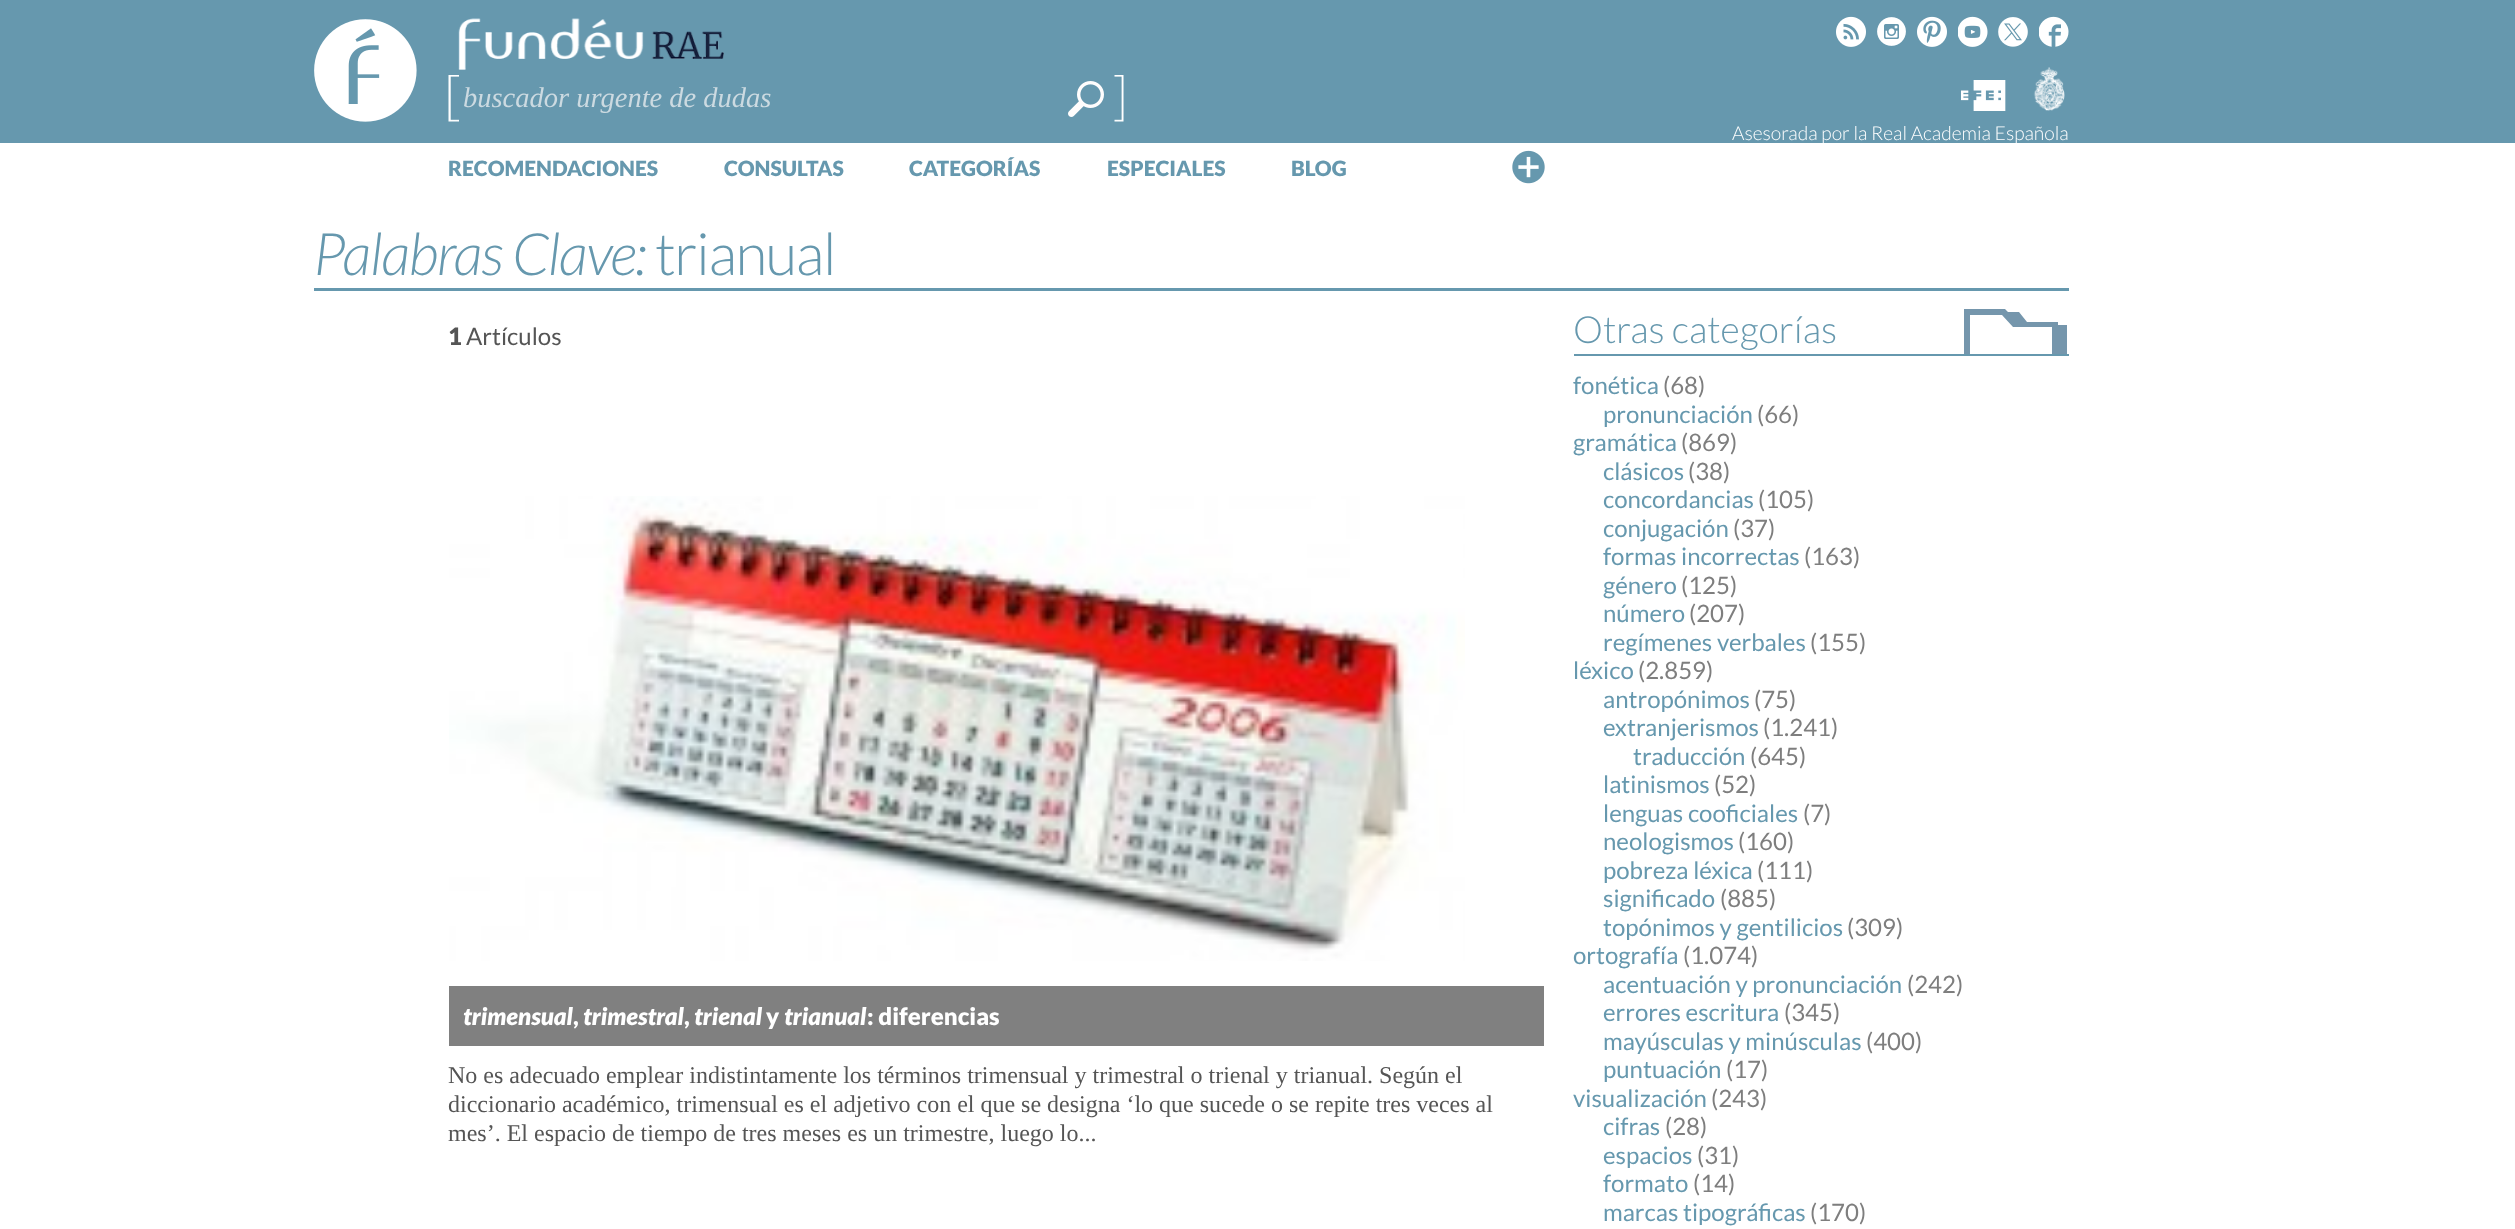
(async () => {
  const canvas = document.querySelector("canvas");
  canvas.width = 2515;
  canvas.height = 1229;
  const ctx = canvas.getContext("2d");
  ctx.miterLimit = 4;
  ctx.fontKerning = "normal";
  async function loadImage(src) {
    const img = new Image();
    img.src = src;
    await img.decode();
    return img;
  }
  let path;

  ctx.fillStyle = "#ffffff";
  ctx.fillRect(0, 0, 2515, 1229);
  ctx.fillStyle = "#6698ae";
  ctx.fillRect(0, 0, 2515, 143);
  ctx.drawImage(await loadImage("img/1.png"), 314, 19, 103, 103);
  ctx.drawImage(await loadImage("img/2.png"), 458, 18, 266, 52);
  ctx.drawImage(await loadImage("img/3.png"), 448, 75, 676, 47);
  ctx.drawImage(await loadImage("img/4.png"), 1068, 81, 36, 36);
  ctx.drawImage(await loadImage("img/5.png"), 1836, 16, 30, 31);
  ctx.drawImage(await loadImage("img/6.png"), 1877, 17, 29, 29);
  ctx.drawImage(await loadImage("img/7.png"), 1917, 16, 30, 31);
  ctx.drawImage(await loadImage("img/8.png"), 1958, 16, 30, 31);
  ctx.drawImage(await loadImage("img/9.png"), 1998, 17, 30, 30);
  ctx.drawImage(await loadImage("img/10.png"), 2039, 16, 30, 31);
  ctx.drawImage(await loadImage("img/11.png"), 1961, 80, 45, 31);
  ctx.drawImage(await loadImage("img/12.png"), 2033, 67, 32, 44);
  ctx.drawImage(await loadImage("img/13.png"), 1512, 150, 33, 34);
  ctx.fillRect(314, 288, 1755, 3);
  ctx.drawImage(await loadImage("img/14.png"), 449, 496, 1016, 465);
  ctx.fillStyle = "#808080";
  ctx.fillRect(449, 986, 1095, 60);
  ctx.fillStyle = "#7596ac";
  path = new Path2D("M2058 325V322H2027L2019 312H2008L2005 309H1964V354H1970V315H2002L2013 327H2052V354H2067V325Z");
  ctx.fill(path);
  ctx.fillStyle = "#6698ae";
  ctx.fillRect(1574, 354, 495, 2);
  ctx.font = "italic 28.5px Tinos";
  ctx.fillStyle = "#ccdae1";
  ctx.fillText("buscador urgente de dudas", 463, 107);
  ctx.font = "300 19.25px Lato";
  ctx.fillStyle = "#ffffff";
  ctx.fillText("Asesorada por la Real Academia Española", 1732, 140);
  ctx.font = "900 21px Lato";
  ctx.fillStyle = "#6698ae";
  for (const [text, x, y] of [
    ["RECOMENDACIONES", 448, 176],
    ["CONSULTAS", 724, 176],
    ["CATEGORÍAS", 909, 176],
    ["ESPECIALES", 1107, 176],
    ["BLOG", 1291, 176],
  ]) {
    ctx.fillText(text, x, y);
  }
  ctx.letterSpacing = "-1.5px";
  ctx.font = "italic 300 58.5px Lato";
  ctx.fillText("Palabras Clave:", 313, 275);
  ctx.font = "300 58.5px Lato";
  ctx.fillText("trianual", 655, 275);
  ctx.letterSpacing = "0px";
  ctx.font = "900 24px Lato";
  ctx.fillStyle = "#555555";
  ctx.fillText("1", 448, 345);
  ctx.font = "24px Lato";
  ctx.fillText("Artículos", 466, 345);
  ctx.font = "italic 900 24px Lato";
  ctx.fillStyle = "#ffffff";
  ctx.fillText("trimensual", 463, 1025);
  ctx.font = "900 24px Lato";
  ctx.fillText(",", 573, 1025);
  ctx.font = "italic 900 24px Lato";
  ctx.fillText("trimestral", 583, 1025);
  ctx.font = "900 24px Lato";
  ctx.fillText(",", 684, 1025);
  ctx.font = "italic 900 24px Lato";
  ctx.fillText("trienal", 694, 1025);
  ctx.font = "900 24px Lato";
  ctx.fillText("y", 766, 1025);
  ctx.font = "italic 900 24px Lato";
  ctx.fillText("trianual", 784, 1025);
  ctx.font = "900 24px Lato";
  ctx.fillText(": diferencias", 867, 1025);
  ctx.font = "24px Tinos";
  ctx.fillStyle = "#555555";
  for (const [text, x, y] of [
    ["No es adecuado emplear indistintamente los términos trimensual y trimestral o trienal y trianual. Según el", 448, 1083],
    ["diccionario académico, trimensual es el adjetivo con el que se designa ‘lo que sucede o se repite tres veces al", 448, 1112],
    ["mes’. El espacio de tiempo de tres meses es un trimestre, luego lo...", 448, 1141],
  ]) {
    ctx.fillText(text, x, y);
  }
  ctx.font = "300 37.5px Lato";
  ctx.fillStyle = "#6698ae";
  ctx.fillText("Otras categorías", 1573, 343);
  ctx.font = "24px Lato";
  ctx.fillText("fonética", 1573, 394);
  ctx.fillStyle = "#7e7e7e";
  ctx.fillText("(68)", 1663, 394);
  ctx.fillStyle = "#6698ae";
  ctx.fillText("pronunciación", 1603, 423);
  ctx.fillStyle = "#7e7e7e";
  ctx.fillText("(66)", 1757, 423);
  ctx.fillStyle = "#6698ae";
  ctx.fillText("gramática", 1573, 451);
  ctx.fillStyle = "#7e7e7e";
  ctx.fillText("(869)", 1681, 451);
  ctx.fillStyle = "#6698ae";
  ctx.fillText("clásicos", 1603, 480);
  ctx.fillStyle = "#7e7e7e";
  ctx.fillText("(38)", 1688, 480);
  ctx.fillStyle = "#6698ae";
  ctx.fillText("concordancias", 1603, 508);
  ctx.fillStyle = "#7e7e7e";
  ctx.fillText("(105)", 1758, 508);
  ctx.fillStyle = "#6698ae";
  ctx.fillText("conjugación", 1603, 537);
  ctx.fillStyle = "#7e7e7e";
  ctx.fillText("(37)", 1733, 537);
  ctx.fillStyle = "#6698ae";
  ctx.fillText("formas incorrectas", 1603, 565);
  ctx.fillStyle = "#7e7e7e";
  ctx.fillText("(163)", 1804, 565);
  ctx.fillStyle = "#6698ae";
  ctx.fillText("género", 1603, 594);
  ctx.fillStyle = "#7e7e7e";
  ctx.fillText("(125)", 1681, 594);
  ctx.fillStyle = "#6698ae";
  ctx.fillText("número", 1603, 622);
  ctx.fillStyle = "#7e7e7e";
  ctx.fillText("(207)", 1689, 622);
  ctx.fillStyle = "#6698ae";
  ctx.fillText("regímenes verbales", 1603, 651);
  ctx.fillStyle = "#7e7e7e";
  ctx.fillText("(155)", 1810, 651);
  ctx.fillStyle = "#6698ae";
  ctx.fillText("léxico", 1573, 679);
  ctx.fillStyle = "#7e7e7e";
  ctx.fillText("(2.859)", 1638, 679);
  ctx.fillStyle = "#6698ae";
  ctx.fillText("antropónimos", 1603, 708);
  ctx.fillStyle = "#7e7e7e";
  ctx.fillText("(75)", 1754, 708);
  ctx.fillStyle = "#6698ae";
  ctx.fillText("extranjerismos", 1603, 736);
  ctx.fillStyle = "#7e7e7e";
  ctx.fillText("(1.241)", 1763, 736);
  ctx.fillStyle = "#6698ae";
  ctx.fillText("traducción", 1633, 765);
  ctx.fillStyle = "#7e7e7e";
  ctx.fillText("(645)", 1750, 765);
  ctx.fillStyle = "#6698ae";
  ctx.fillText("latinismos", 1603, 793);
  ctx.fillStyle = "#7e7e7e";
  ctx.fillText("(52)", 1714, 793);
  ctx.fillStyle = "#6698ae";
  ctx.fillText("lenguas cooficiales", 1603, 822);
  ctx.fillStyle = "#7e7e7e";
  ctx.fillText("(7)", 1803, 822);
  ctx.fillStyle = "#6698ae";
  ctx.fillText("neologismos", 1603, 850);
  ctx.fillStyle = "#7e7e7e";
  ctx.fillText("(160)", 1738, 850);
  ctx.fillStyle = "#6698ae";
  ctx.fillText("pobreza léxica", 1603, 879);
  ctx.fillStyle = "#7e7e7e";
  ctx.fillText("(111)", 1757, 879);
  ctx.fillStyle = "#6698ae";
  ctx.fillText("significado", 1603, 907);
  ctx.fillStyle = "#7e7e7e";
  ctx.fillText("(885)", 1720, 907);
  ctx.fillStyle = "#6698ae";
  ctx.fillText("topónimos y gentilicios", 1603, 936);
  ctx.fillStyle = "#7e7e7e";
  ctx.fillText("(309)", 1847, 936);
  ctx.fillStyle = "#6698ae";
  ctx.fillText("ortografía", 1573, 964);
  ctx.fillStyle = "#7e7e7e";
  ctx.fillText("(1.074)", 1683, 964);
  ctx.fillStyle = "#6698ae";
  ctx.fillText("acentuación y pronunciación", 1603, 993);
  ctx.fillStyle = "#7e7e7e";
  ctx.fillText("(242)", 1907, 993);
  ctx.fillStyle = "#6698ae";
  ctx.fillText("errores escritura", 1603, 1021);
  ctx.fillStyle = "#7e7e7e";
  ctx.fillText("(345)", 1784, 1021);
  ctx.fillStyle = "#6698ae";
  ctx.fillText("mayúsculas y minúsculas", 1603, 1050);
  ctx.fillStyle = "#7e7e7e";
  ctx.fillText("(400)", 1866, 1050);
  ctx.fillStyle = "#6698ae";
  ctx.fillText("puntuación", 1603, 1078);
  ctx.fillStyle = "#7e7e7e";
  ctx.fillText("(17)", 1726, 1078);
  ctx.fillStyle = "#6698ae";
  ctx.fillText("visualización", 1573, 1107);
  ctx.fillStyle = "#7e7e7e";
  ctx.fillText("(243)", 1711, 1107);
  ctx.fillStyle = "#6698ae";
  ctx.fillText("cifras", 1603, 1135);
  ctx.fillStyle = "#7e7e7e";
  ctx.fillText("(28)", 1665, 1135);
  ctx.fillStyle = "#6698ae";
  ctx.fillText("espacios", 1603, 1164);
  ctx.fillStyle = "#7e7e7e";
  ctx.fillText("(31)", 1697, 1164);
  ctx.fillStyle = "#6698ae";
  ctx.fillText("formato", 1603, 1192);
  ctx.fillStyle = "#7e7e7e";
  ctx.fillText("(14)", 1693, 1192);
  ctx.fillStyle = "#6698ae";
  ctx.fillText("marcas tipográficas", 1603, 1221);
  ctx.fillStyle = "#7e7e7e";
  ctx.fillText("(170)", 1810, 1221);
})();
